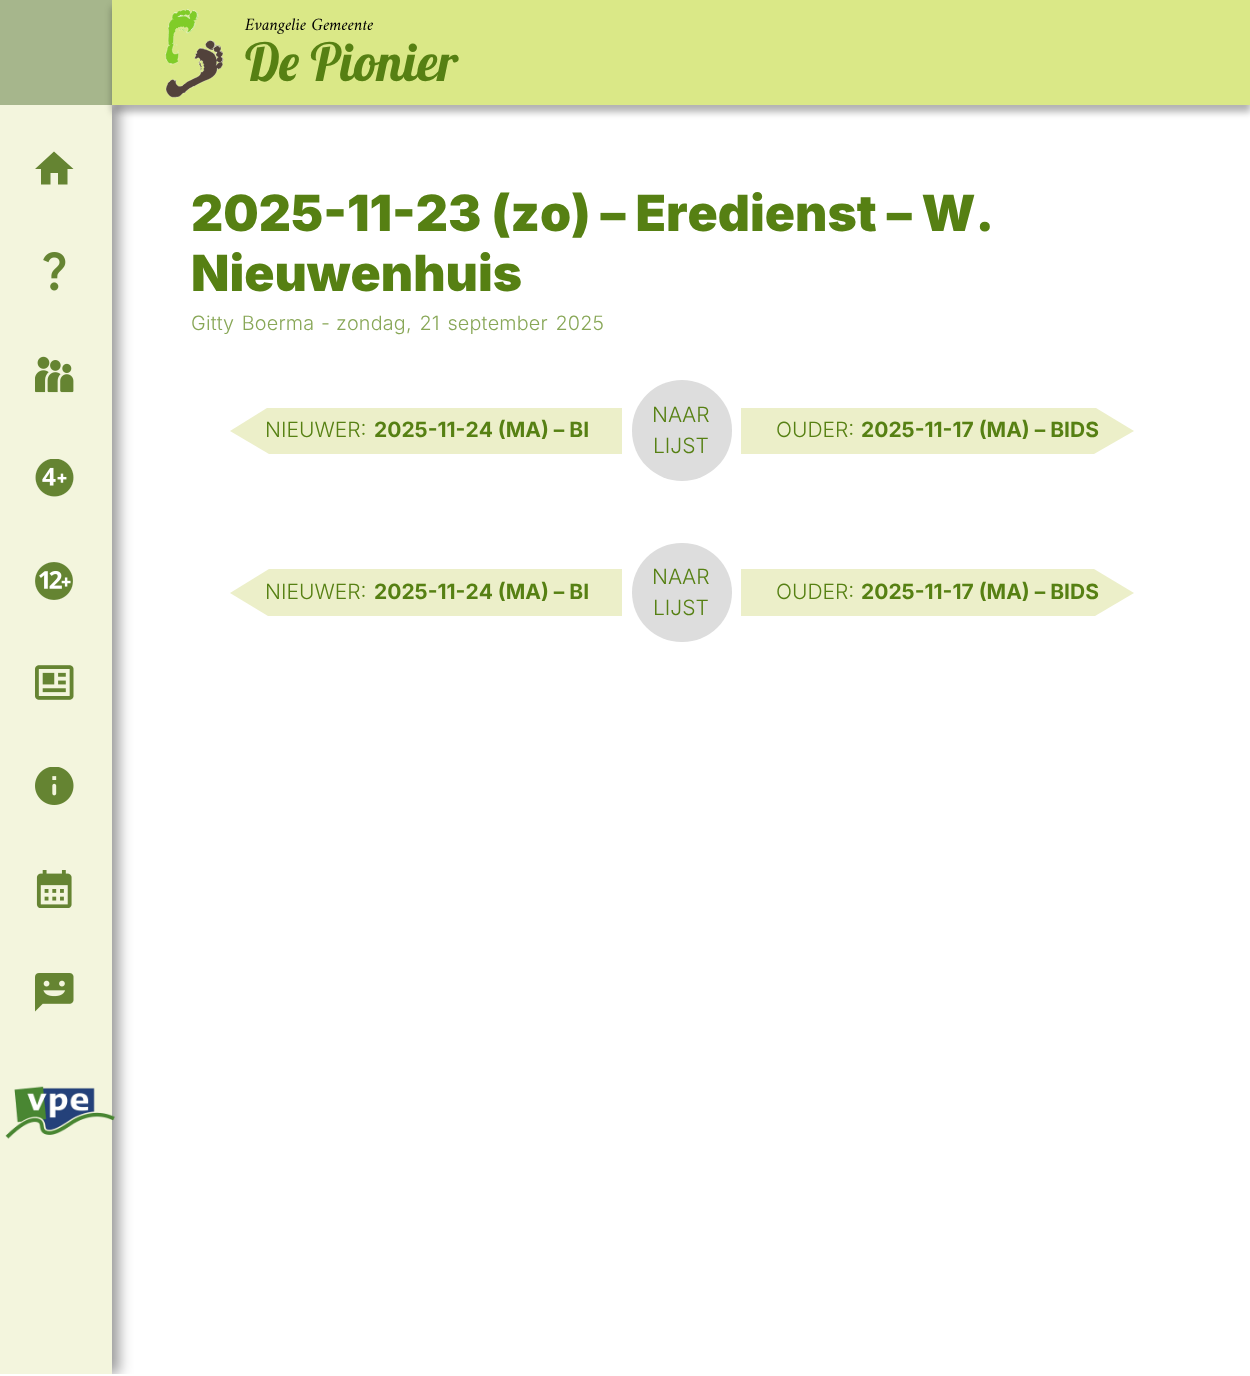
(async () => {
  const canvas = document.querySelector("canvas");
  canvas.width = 1250;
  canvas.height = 1376;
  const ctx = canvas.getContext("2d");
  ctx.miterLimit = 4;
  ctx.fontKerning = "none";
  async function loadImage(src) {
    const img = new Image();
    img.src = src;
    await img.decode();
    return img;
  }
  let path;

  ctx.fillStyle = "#ffffff";
  ctx.fillRect(0, 0, 1250, 1376);
  ctx.fillStyle = "#a6b68c";
  ctx.fillRect(0, 0, 112, 105);
  ctx.save();
  ctx.beginPath();
  ctx.rect(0, 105, 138, 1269);
  ctx.clip();
  ctx.fillStyle = "rgba(0, 0, 0, 0.4)";
  ctx.filter = "blur(7px)";
  ctx.beginPath();
  ctx.rect(7, 105, 112, 1269);
  ctx.fill();
  ctx.filter = "none";
  ctx.restore();
  ctx.fillStyle = "#f3f5dd";
  ctx.fillRect(0, 105, 112, 1269);
  ctx.fillStyle = "rgba(0, 0, 0, 0.3)";
  ctx.filter = "blur(3.5px)";
  ctx.beginPath();
  ctx.rect(112, 7, 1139, 105);
  ctx.fill();
  ctx.filter = "none";
  ctx.fillStyle = "#dae887";
  ctx.fillRect(112, 0, 1138, 105);
  ctx.drawImage(await loadImage("img/1.png"), 165, 9, 59, 89);
  ctx.fillStyle = "#658432";
  path = new Path2D("M50.5 184.5V173H58V184.5H67.5V169H73.5L54 151.5L35 169H41V184.5Z");
  ctx.fill(path);
  ctx.drawImage(await loadImage("img/2.png"), 43, 252, 23, 39);
  ctx.drawImage(await loadImage("img/3.png"), 35, 356, 39, 37);
  ctx.drawImage(await loadImage("img/4.png"), 35, 459, 39, 38);
  ctx.drawImage(await loadImage("img/5.png"), 35, 562, 38, 38);
  ctx.drawImage(await loadImage("img/6.png"), 35, 665, 39, 35);
  ctx.drawImage(await loadImage("img/7.png"), 35, 767, 39, 38);
  ctx.drawImage(await loadImage("img/8.png"), 36, 870, 36, 38);
  ctx.drawImage(await loadImage("img/9.png"), 35, 973, 39, 39);
  ctx.drawImage(await loadImage("img/10.png"), 5, 1086, 110, 53);
  ctx.fillStyle = "#ecefc9";
  path = new Path2D("M230 431L269 454H622V408H267Z");
  ctx.fill(path);
  ctx.fillStyle = "#dddddd";
  ctx.beginPath();
  ctx.roundRect(632, 380, 100, 101, 50);
  ctx.fill();
  ctx.fillStyle = "#ecefc9";
  path = new Path2D("M1096 408L1134 431L1094 454H741V408Z");
  ctx.fill(path);
  path = new Path2D("M230 593L269 569H622V616H268Z");
  ctx.fill(path);
  ctx.fillStyle = "#dddddd";
  ctx.beginPath();
  ctx.roundRect(632, 543, 100, 99, 49.5);
  ctx.fill();
  ctx.fillStyle = "#ecefc9";
  path = new Path2D("M741 569H1094L1134 593L1095 616H741Z");
  ctx.fill(path);
  ctx.font = "italic 17.5px Amiri";
  ctx.fillStyle = "#000000";
  ctx.fillText("Evangelie Gemeente", 245, 30);
  ctx.font = "52.5px Lobster";
  ctx.fillStyle = "#568013";
  ctx.fillText("De Pionier", 245, 81);
  ctx.font = "900 49.9px Inter";
  ctx.fillText("2025-11-23 (zo) – Eredienst – W.", 191, 231);
  ctx.fillText("Nieuwenhuis", 191, 291);
  ctx.letterSpacing = "0.2px";
  ctx.wordSpacing = "2px";
  ctx.font = "300 19.75px Inter";
  ctx.fillStyle = "#88a757";
  ctx.fillText("Gitty Boerma", 191, 330);
  ctx.wordSpacing = "0px";
  ctx.fillText("-", 321, 330);
  ctx.wordSpacing = "2px";
  ctx.fillText("zondag, 21 september 2025", 336, 330);
  ctx.letterSpacing = "0px";
  ctx.wordSpacing = "0px";
  ctx.font = "300 21px Inter";
  ctx.fillStyle = "#568013";
  ctx.fillText("NIEUWER:", 265, 437);
  ctx.font = "bold 21px Inter";
  ctx.fillText("2025-11-24 (MA) – BI", 374, 437);
  ctx.font = "300 21px Inter";
  for (const [text, x, y] of [
    ["NAAR", 652, 422],
    ["LIJST", 653, 453],
    ["OUDER:", 776, 437],
  ]) {
    ctx.fillText(text, x, y);
  }
  ctx.font = "bold 21px Inter";
  ctx.fillText("2025-11-17 (MA) – BIDS", 861, 437);
  ctx.font = "300 21px Inter";
  ctx.fillText("NIEUWER:", 265, 599);
  ctx.font = "bold 21px Inter";
  ctx.fillText("2025-11-24 (MA) – BI", 374, 599);
  ctx.font = "300 21px Inter";
  for (const [text, x, y] of [
    ["NAAR", 652, 584],
    ["LIJST", 653, 615],
    ["OUDER:", 776, 599],
  ]) {
    ctx.fillText(text, x, y);
  }
  ctx.font = "bold 21px Inter";
  ctx.fillText("2025-11-17 (MA) – BIDS", 861, 599);
})();
